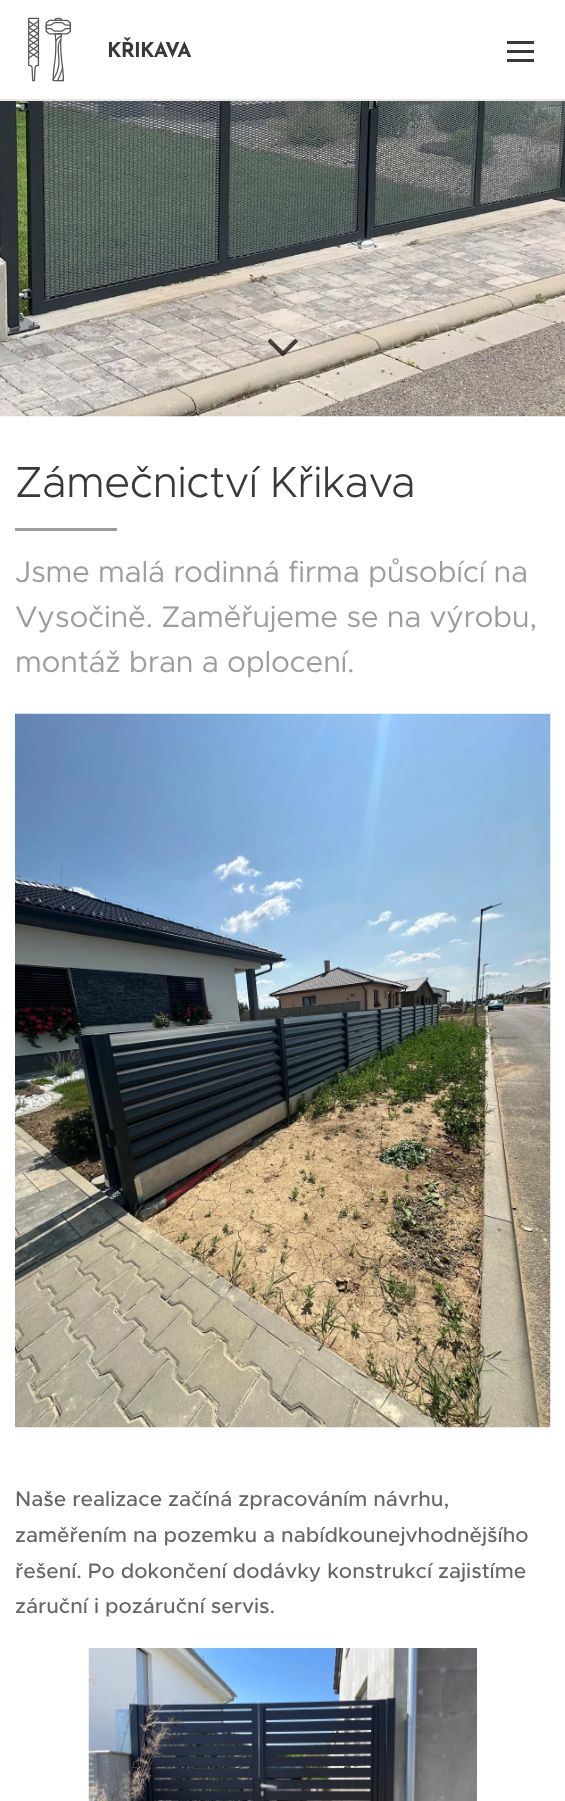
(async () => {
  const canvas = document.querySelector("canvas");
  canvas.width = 565;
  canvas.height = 1801;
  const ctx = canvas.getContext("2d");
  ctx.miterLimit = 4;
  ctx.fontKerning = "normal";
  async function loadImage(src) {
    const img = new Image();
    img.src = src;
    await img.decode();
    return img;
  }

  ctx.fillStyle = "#ffffff";
  ctx.fillRect(0, 0, 565, 1801);
  ctx.fillStyle = "#e8e8e8";
  ctx.fillRect(0, 99, 565, 2);
  ctx.drawImage(await loadImage("img/1.png"), 28, 17, 43, 65);
  for (const [x, y, w, h, color] of [
    [507, 50, 27, 3, "#393939"],
    [507, 41, 27, 3, "#393939"],
    [507, 59, 27, 3, "#393939"],
  ]) {
    ctx.fillStyle = color;
    ctx.fillRect(x, y, w, h);
  }
  ctx.drawImage(await loadImage("img/2.png"), 0, 101, 565, 316);
  ctx.drawImage(await loadImage("img/3.png"), 267, 338, 31, 19);
  ctx.fillStyle = "#9d9d9d";
  ctx.fillRect(15, 528, 102, 3);
  ctx.drawImage(await loadImage("img/4.png"), 15, 713, 536, 715);
  ctx.drawImage(await loadImage("img/5.png"), 88, 1648, 389, 153);
  ctx.letterSpacing = "-0.75px";
  ctx.font = "bold 20.5px Josefin Sans";
  ctx.fillStyle = "#393939";
  ctx.fillText("KŘIKAVA", 107, 57);
  ctx.letterSpacing = "-0.4px";
  ctx.font = "300 43.5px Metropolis";
  ctx.fillText("Zámečnictví Křikava", 15, 497);
  ctx.letterSpacing = "-0.3px";
  ctx.font = "30px Metropolis";
  ctx.fillStyle = "#9d9d9d";
  for (const [text, x, y] of [
    ["Jsme malá rodinná firma působící na", 15, 582],
    ["Vysočině. Zaměřujeme se na výrobu,", 15, 627],
    ["montáž bran a oplocení.", 15, 672],
  ]) {
    ctx.fillText(text, x, y);
  }
  ctx.letterSpacing = "0px";
  ctx.font = "500 21px Metropolis";
  ctx.fillStyle = "#666666";
  for (const [text, x, y] of [
    ["Naše realizace začíná zpracováním návrhu,", 15, 1506],
    ["zaměřením na pozemku a nabídkounejvhodnějšího", 15, 1542],
    ["řešení. Po dokončení dodávky konstrukcí zajistíme", 15, 1578],
    ["záruční i pozáruční servis.", 15, 1613],
  ]) {
    ctx.fillText(text, x, y);
  }
})();
